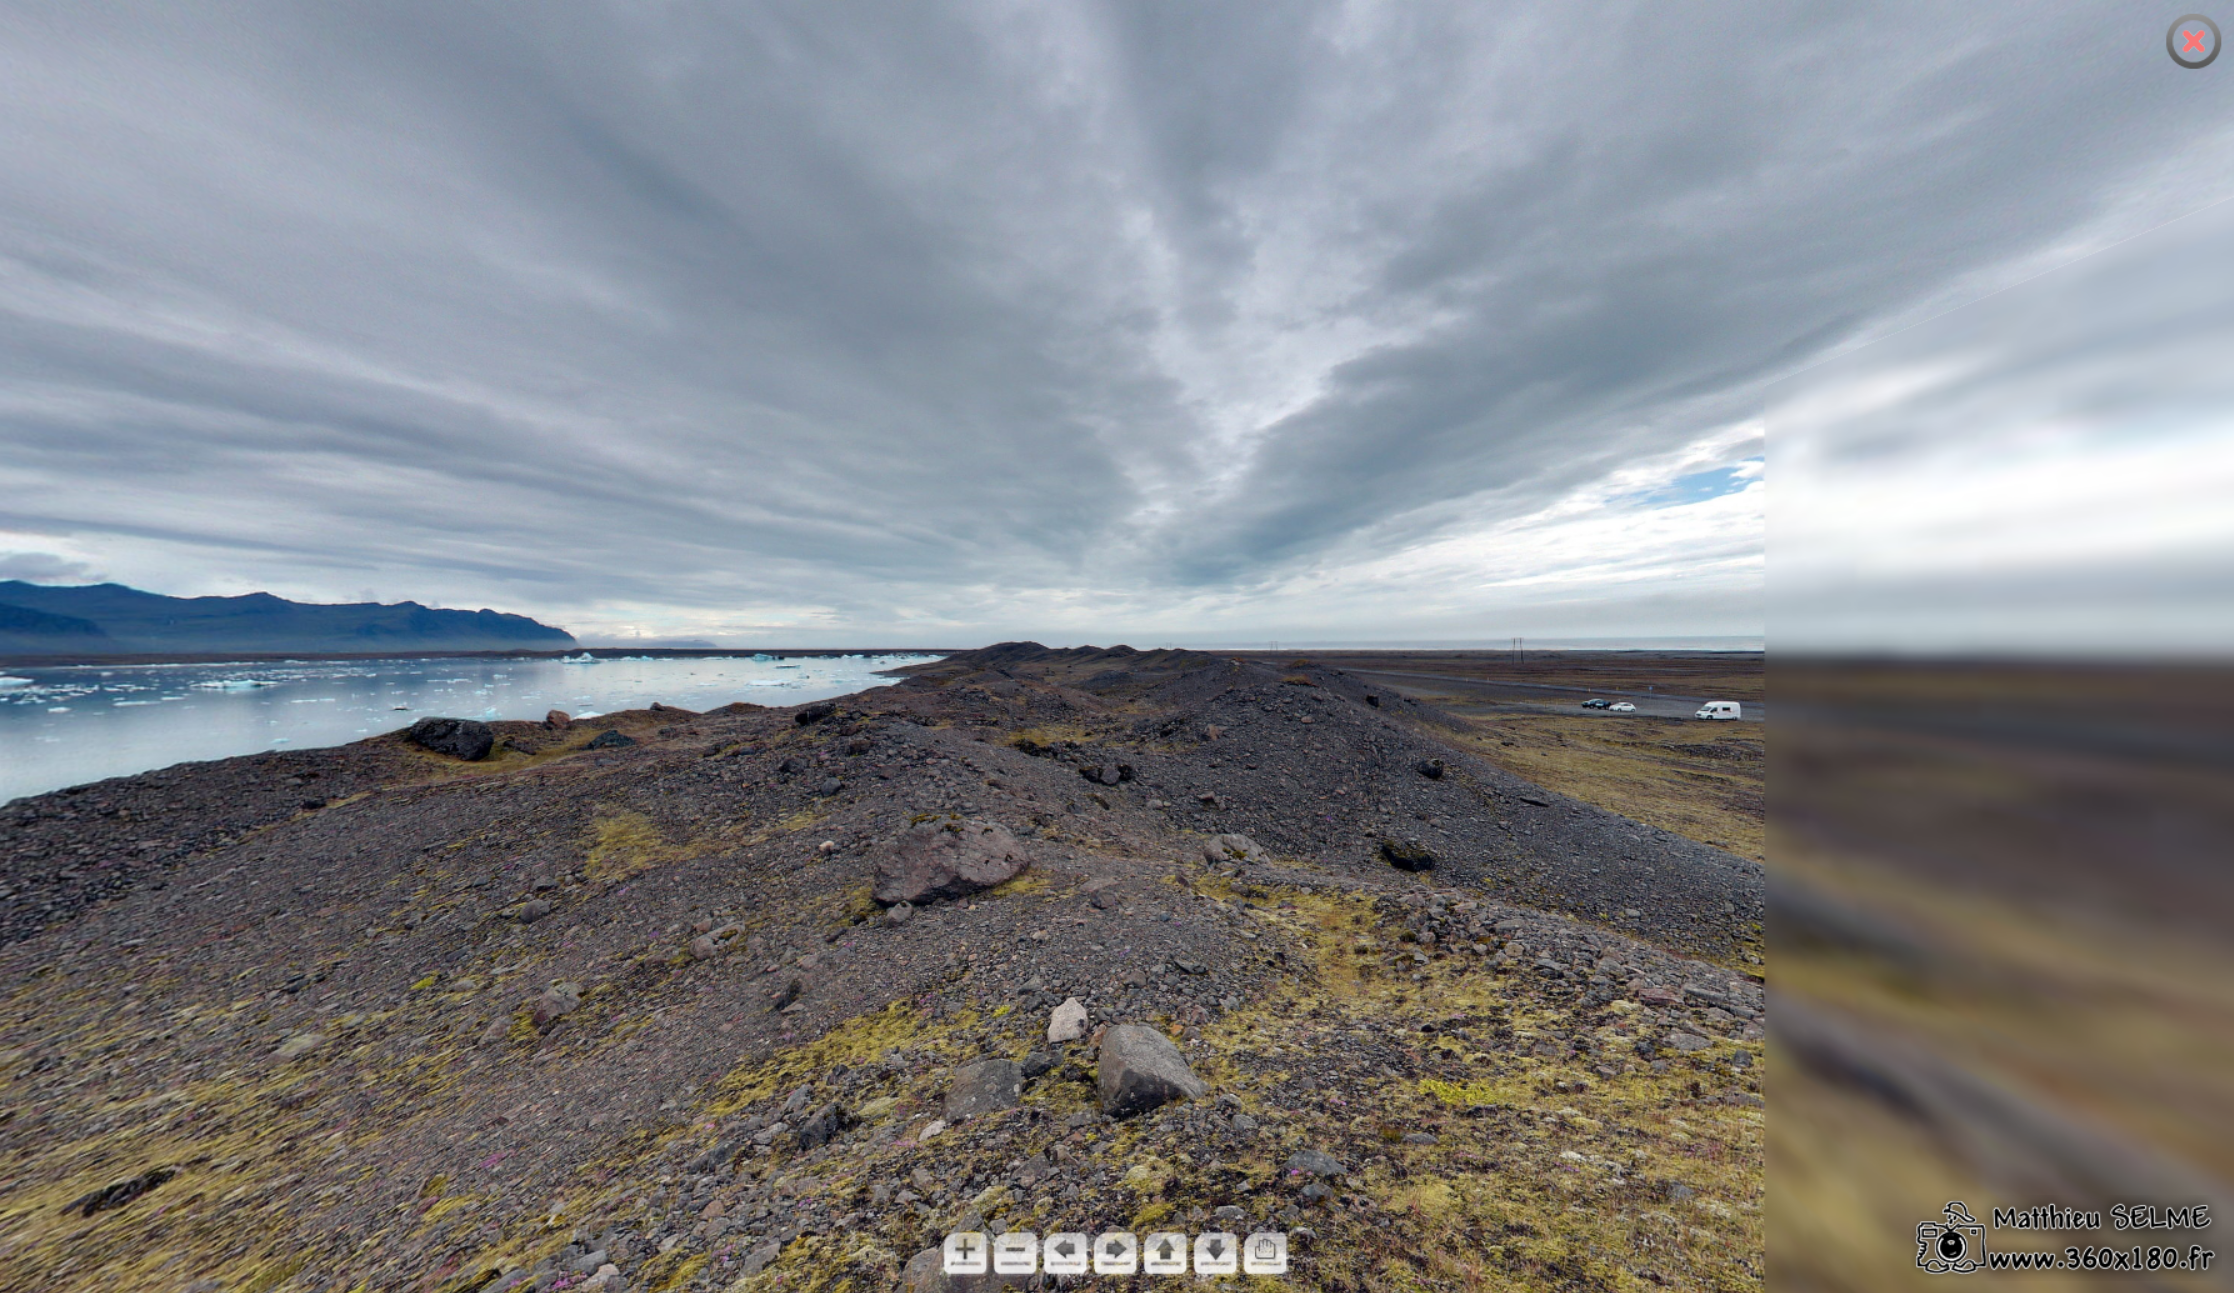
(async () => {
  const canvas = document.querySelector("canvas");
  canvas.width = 2234;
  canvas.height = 1293;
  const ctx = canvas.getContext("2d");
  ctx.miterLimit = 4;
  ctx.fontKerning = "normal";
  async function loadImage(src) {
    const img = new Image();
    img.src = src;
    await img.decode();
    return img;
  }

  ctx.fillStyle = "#ffffff";
  ctx.fillRect(0, 0, 2234, 1293);
  ctx.drawImage(await loadImage("img/1.png"), 0, 0, 2234, 1293);
  ctx.drawImage(await loadImage("img/2.png"), 2166, 13, 56, 56);
  ctx.drawImage(await loadImage("img/3.png"), 943, 1232, 48, 46);
  ctx.drawImage(await loadImage("img/4.png"), 993, 1231, 48, 47);
  ctx.drawImage(await loadImage("img/5.png"), 1043, 1232, 48, 46);
  ctx.drawImage(await loadImage("img/6.png"), 1093, 1231, 48, 47);
  ctx.drawImage(await loadImage("img/7.png"), 1143, 1231, 48, 47);
  ctx.drawImage(await loadImage("img/8.png"), 1193, 1231, 48, 47);
  ctx.drawImage(await loadImage("img/9.png"), 1243, 1231, 48, 47);
  ctx.drawImage(await loadImage("img/10.png"), 1910, 1195, 312, 86);
})();
